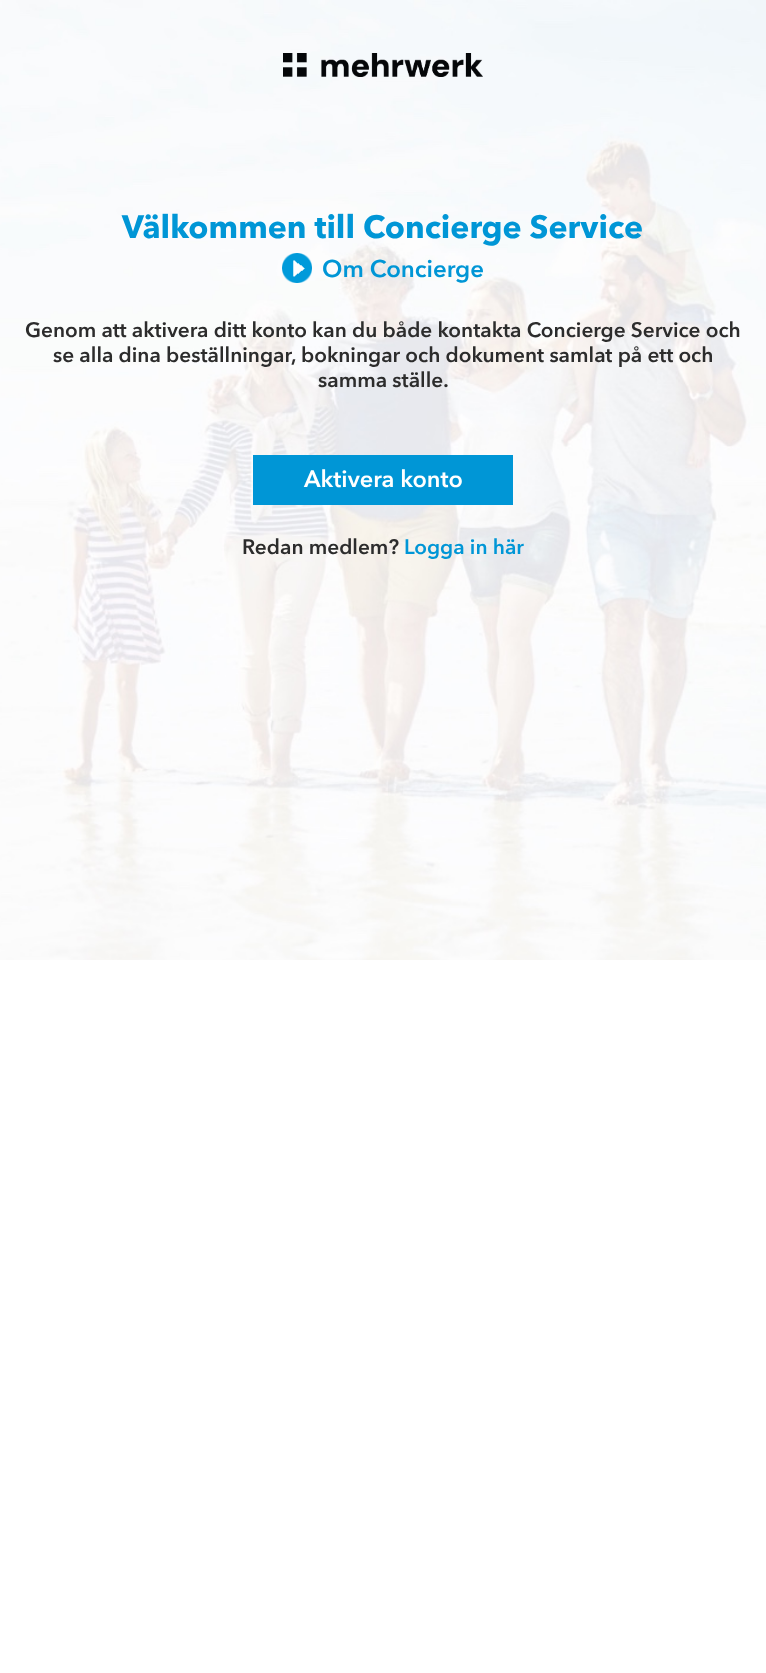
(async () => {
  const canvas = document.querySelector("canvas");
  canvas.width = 766;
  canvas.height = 1673;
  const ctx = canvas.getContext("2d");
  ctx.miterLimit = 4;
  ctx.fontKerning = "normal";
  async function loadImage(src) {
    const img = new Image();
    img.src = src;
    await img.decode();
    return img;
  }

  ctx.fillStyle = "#ffffff";
  ctx.fillRect(0, 0, 766, 1673);
  ctx.drawImage(await loadImage("img/1.png"), 0, 0, 766, 960);
  ctx.drawImage(await loadImage("img/2.png"), 283, 53, 200, 24);
  ctx.drawImage(await loadImage("img/3.png"), 282, 253, 30, 30);
  ctx.fillStyle = "#0096d6";
  ctx.fillRect(253, 455, 260, 50);
  ctx.font = "bold 32px Avenir Next";
  ctx.fillText("Välkommen till Concierge Service", 122, 238);
  ctx.font = "600 24px Avenir Next";
  ctx.fillText("Om Concierge", 322, 277);
  ctx.font = "600 20.8px Avenir Next";
  ctx.fillStyle = "#2c2c2c";
  for (const [text, x, y] of [
    ["Genom att aktivera ditt konto kan du både kontakta Concierge Service och", 25, 337],
    ["se alla dina beställningar, bokningar och dokument samlat på ett och", 53, 362],
    ["samma ställe.", 318, 387],
  ]) {
    ctx.fillText(text, x, y);
  }
  ctx.font = "600 23.5px Avenir Next";
  ctx.fillStyle = "#ffffff";
  ctx.fillText("Aktivera konto", 304, 487);
  ctx.font = "600 20.8px Avenir Next";
  ctx.fillStyle = "#2c2c2c";
  ctx.fillText("Redan medlem?", 242, 554);
  ctx.fillStyle = "#0096d6";
  ctx.fillText("Logga in här", 404, 554);
})();
